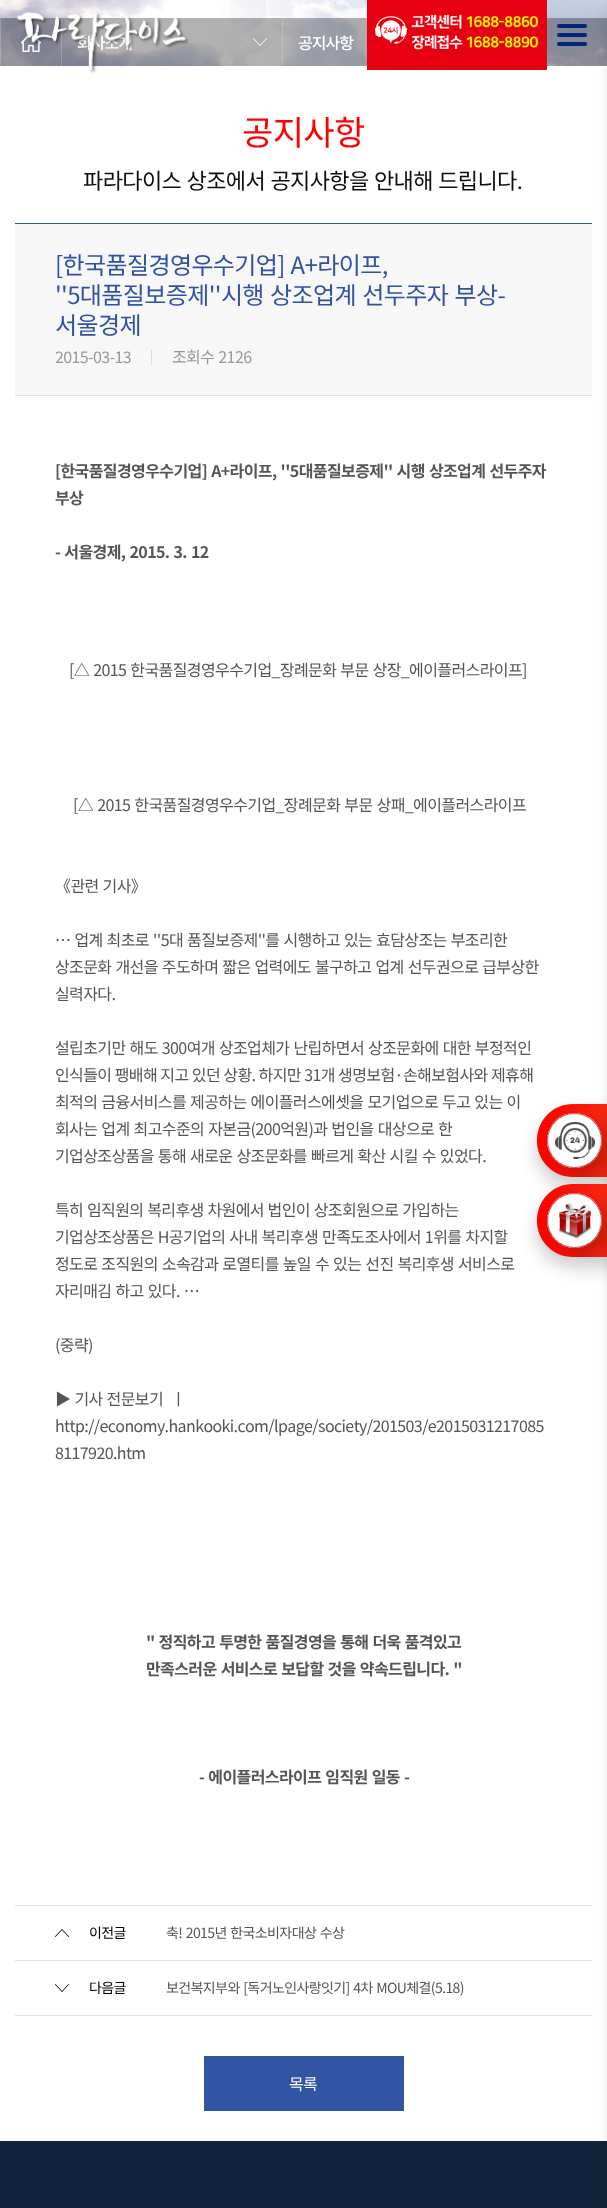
(async () => {
  const canvas = document.querySelector("canvas");
  canvas.width = 607;
  canvas.height = 2208;
  const ctx = canvas.getContext("2d");
  ctx.miterLimit = 4;
  ctx.fontKerning = "none";
  async function loadImage(src) {
    const img = new Image();
    img.src = src;
    await img.decode();
    return img;
  }
  let gradient, path;

  ctx.fillStyle = "#ffffff";
  ctx.fillRect(0, 0, 607, 2208);
  ctx.drawImage(await loadImage("img/3.png"), 0, 0, 607, 66);
  ctx.fillStyle = "rgba(0, 0, 0, 0.3)";
  ctx.fillRect(0, 18, 607, 48);
  ctx.drawImage(await loadImage("img/2.png"), 367, 0, 180, 70);
  ctx.fillStyle = "#042578";
  ctx.beginPath();
  ctx.roundRect(557, 24, 30, 4, 2);
  ctx.fill();
  ctx.beginPath();
  ctx.roundRect(557, 33, 30, 4, 2);
  ctx.fill();
  ctx.beginPath();
  ctx.roundRect(557, 42, 30, 4, 2);
  ctx.fill();
  ctx.drawImage(await loadImage("img/4.png"), 21, 32, 20, 20);
  for (const [x, y, w, h, color] of [
    [61, 18, 1, 48, "rgba(255, 255, 255, 0.2)"],
    [0, 18, 1, 48, "rgba(255, 255, 255, 0.2)"],
    [282, 18, 1, 48, "rgba(255, 255, 255, 0.2)"],
  ]) {
    ctx.fillStyle = color;
    ctx.fillRect(x, y, w, h);
  }
  ctx.drawImage(await loadImage("img/5.png"), 253, 38, 14, 8);
  for (const [x, y, w, h, color] of [
    [15, 224, 577, 171, "#f7f7f7"],
    [15, 223, 577, 1, "#3255a3"],
    [15, 395, 577, 1, "#e2e2e2"],
    [151, 350, 1, 15, "#dcdcdc"],
    [15, 1905, 577, 1, "#e2e2e2"],
    [15, 1960, 577, 1, "#e2e2e2"],
  ]) {
    ctx.fillStyle = color;
    ctx.fillRect(x, y, w, h);
  }
  ctx.drawImage(await loadImage("img/6.png"), 55, 1929, 14, 8);
  ctx.fillRect(15, 2015, 577, 1);
  ctx.drawImage(await loadImage("img/7.png"), 55, 1984, 14, 8);
  ctx.fillStyle = "#3255a3";
  ctx.fillRect(204, 2056, 200, 55);
  ctx.fillStyle = "rgba(0, 0, 0, 0.2)";
  ctx.filter = "blur(9px)";
  ctx.beginPath();
  ctx.roundRect(537, 1114, 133, 73, 36);
  ctx.fill();
  ctx.filter = "none";
  gradient = ctx.createLinearGradient(537, 1141, 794, 1141);
  gradient.addColorStop(0, "#ff0000");
  gradient.addColorStop(1, "#ed903c");
  ctx.fillStyle = gradient;
  path = new Path2D("M573 1104H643V1177H573C553 1177 537 1161 537 1141V1140C537 1120 553 1104 573 1104Z");
  ctx.fill(path);
  ctx.save();
  path = new Path2D("M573 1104H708V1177H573C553 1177 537 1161 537 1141V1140C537 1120 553 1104 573 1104Z");
  ctx.clip(path);
  ctx.fillStyle = "rgba(0, 0, 0, 0.2)";
  ctx.filter = "blur(9px)";
  ctx.beginPath();
  ctx.roundRect(557, 1123, 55, 55, 27.5);
  ctx.fill();
  ctx.filter = "none";
  ctx.restore();
  ctx.fillStyle = "#ffffff";
  ctx.beginPath();
  ctx.arc(574.5, 1140.5, 27.5, 0, Math.PI * 2);
  ctx.fill();
  ctx.drawImage(await loadImage("img/8.png"), 555, 1122, 40, 37);
  ctx.beginPath();
  ctx.arc(574.5, 1140.5, 27, 0, Math.PI * 2);
  ctx.strokeStyle = "#c94c4c";
  ctx.stroke();
  ctx.fillStyle = "rgba(0, 0, 0, 0.2)";
  ctx.filter = "blur(9px)";
  ctx.beginPath();
  ctx.roundRect(537, 1194, 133, 73, 36);
  ctx.fill();
  ctx.filter = "none";
  gradient = ctx.createLinearGradient(537, 1221, 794, 1221);
  gradient.addColorStop(0, "#ff0000");
  gradient.addColorStop(1, "#ed903c");
  ctx.fillStyle = gradient;
  path = new Path2D("M573 1184H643V1257H573C553 1257 537 1241 537 1221V1220C537 1200 553 1184 573 1184Z");
  ctx.fill(path);
  ctx.save();
  path = new Path2D("M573 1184H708V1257H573C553 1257 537 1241 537 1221V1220C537 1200 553 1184 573 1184Z");
  ctx.clip(path);
  ctx.fillStyle = "rgba(0, 0, 0, 0.2)";
  ctx.filter = "blur(9px)";
  ctx.beginPath();
  ctx.roundRect(557, 1203, 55, 55, 27.5);
  ctx.fill();
  ctx.filter = "none";
  ctx.restore();
  ctx.fillStyle = "#ffffff";
  ctx.beginPath();
  ctx.arc(574.5, 1220.5, 27.5, 0, Math.PI * 2);
  ctx.fill();
  ctx.drawImage(await loadImage("img/9.png"), 558, 1203, 34, 36);
  ctx.beginPath();
  ctx.arc(574.5, 1220.5, 27, 0, Math.PI * 2);
  ctx.stroke();
  ctx.fillStyle = "#10243b";
  ctx.fillRect(0, 2141, 607, 67);
  ctx.fillStyle = "rgba(0, 0, 0, 0.4)";
  ctx.filter = "blur(9px)";
  ctx.beginPath();
  ctx.rect(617, 10, 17, 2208);
  ctx.fill();
  ctx.filter = "none";
  ctx.letterSpacing = "-1px";
  ctx.font = "500 16px Noto Sans KR";
  ctx.fillStyle = "#ffffff";
  ctx.fillText("회사소개", 77, 49);
  ctx.drawImage(await loadImage("img/1.png"), 17, 11, 172, 63);
  ctx.fillText("공지사항", 298, 49);
  ctx.letterSpacing = "-0.6px";
  ctx.font = "34px Noto Sans KR";
  ctx.fillStyle = "#ff0000";
  ctx.fillText("공지사항", 242, 145);
  ctx.wordSpacing = "1px";
  ctx.font = "22px Noto Sans KR";
  ctx.fillStyle = "#0f0e0e";
  ctx.fillText("파라다이스 상조에서 공지사항을 안내해 드립니다.", 83, 189);
  ctx.font = "24px Noto Sans KR";
  ctx.fillStyle = "#3152a0";
  ctx.fillText("[한국품질경영우수기업] A+라이프,", 55, 274);
  ctx.wordSpacing = "1.5px";
  ctx.fillText("''5대품질보증제''시행 상조업계 선두주자 부상-", 55, 304);
  ctx.wordSpacing = "0px";
  ctx.fillText("서울경제", 55, 334);
  ctx.font = "16px Noto Sans KR";
  ctx.fillStyle = "#999999";
  ctx.fillText("2015-03-13", 55, 363);
  ctx.wordSpacing = "1px";
  ctx.fillText("조회수 2126", 172, 363);
  ctx.font = "bold 16px Noto Sans KR";
  ctx.fillStyle = "#555555";
  ctx.fillText("[한국품질경영우수기업] A+라이프, ''5대품질보증제'' 시행 상조업계 선두주자", 55, 477);
  ctx.wordSpacing = "0px";
  ctx.fillText("부상", 55, 504);
  ctx.wordSpacing = "1px";
  ctx.fillText("- 서울경제, 2015. 3. 12", 55, 558);
  ctx.font = "16px Noto Sans KR";
  for (const [text, x, y] of [
    ["[△ 2015 한국품질경영우수기업_장례문화 부문 상장_에이플러스라이프]", 69, 676],
    ["[△ 2015 한국품질경영우수기업_장례문화 부문 상패_에이플러스라이프", 73, 811],
    ["《관련 기사》", 55, 892],
    ["… 업계 최초로 ''5대 품질보증제''를 시행하고 있는 효담상조는 부조리한", 55, 946],
    ["상조문화 개선을 주도하며 짧은 업력에도 불구하고 업계 선두권으로 급부상한", 55, 973],
  ]) {
    ctx.fillText(text, x, y);
  }
  ctx.wordSpacing = "0px";
  ctx.fillText("실력자다.", 55, 1000);
  ctx.wordSpacing = "1px";
  ctx.fillText("설립초기만 해도 300여개 상조업체가 난립하면서 상조문화에 대한 부정적인", 55, 1054);
  ctx.wordSpacing = "0.25px";
  ctx.fillText("인식들이 팽배해 지고 있던 상황. 하지만 31개 생명보험·손해보험사와 제휴해", 55, 1081);
  ctx.wordSpacing = "1px";
  for (const [text, x, y] of [
    ["최적의 금융서비스를 제공하는 에이플러스에셋을 모기업으로 두고 있는 이", 55, 1108],
    ["회사는 업계 최고수준의 자본금(200억원)과 법인을 대상으로 한", 55, 1135],
    ["기업상조상품을 통해 새로운 상조문화를 빠르게 확산 시킬 수 있었다.", 55, 1162],
  ]) {
    ctx.fillText(text, x, y);
  }
  ctx.wordSpacing = "0.75px";
  ctx.fillText("특히 임직원의 복리후생 차원에서 법인이 상조회원으로 가입하는", 55, 1216);
  ctx.wordSpacing = "1px";
  for (const [text, x, y] of [
    ["기업상조상품은 H공기업의 사내 복리후생 만족도조사에서 1위를 차지할", 55, 1243],
    ["정도로 조직원의 소속감과 로열티를 높일 수 있는 선진 복리후생 서비스로", 55, 1270],
    ["자리매김 하고 있다. …", 55, 1297],
  ]) {
    ctx.fillText(text, x, y);
  }
  ctx.wordSpacing = "0px";
  ctx.fillText("(중략)", 55, 1351);
  ctx.wordSpacing = "1px";
  ctx.fillText("▶ 기사 전문보기  ㅣ", 55, 1405);
  ctx.wordSpacing = "0px";
  ctx.fillText("http://economy.hankooki.com/lpage/society/201503/e2015031217085", 55, 1432);
  ctx.fillText("8117920.htm", 55, 1459);
  ctx.wordSpacing = "1px";
  ctx.font = "bold 16px Noto Sans KR";
  for (const [text, x, y] of [
    ["\" 정직하고 투명한 품질경영을 통해 더욱 품격있고", 146, 1648],
    ["만족스러운 서비스로 보답할 것을 약속드립니다. \"", 146, 1675],
    ["- 에이플러스라이프 임직원 일동 -", 199, 1783],
  ]) {
    ctx.fillText(text, x, y);
  }
  ctx.wordSpacing = "0px";
  ctx.font = "14px Noto Sans KR";
  ctx.fillStyle = "#000000";
  ctx.fillText("이전글", 89, 1938);
  ctx.wordSpacing = "1px";
  ctx.fillStyle = "#555555";
  ctx.fillText("축! 2015년 한국소비자대상 수상", 166, 1938);
  ctx.wordSpacing = "0px";
  ctx.fillStyle = "#000000";
  ctx.fillText("다음글", 89, 1993);
  ctx.wordSpacing = "1px";
  ctx.fillStyle = "#555555";
  ctx.fillText("보건복지부와 [독거노인사랑잇기] 4차 MOU체결(5.18)", 166, 1993);
  ctx.wordSpacing = "0px";
  ctx.font = "16px Noto Sans KR";
  ctx.fillStyle = "#ffffff";
  ctx.fillText("목록", 289, 2090);
})();
